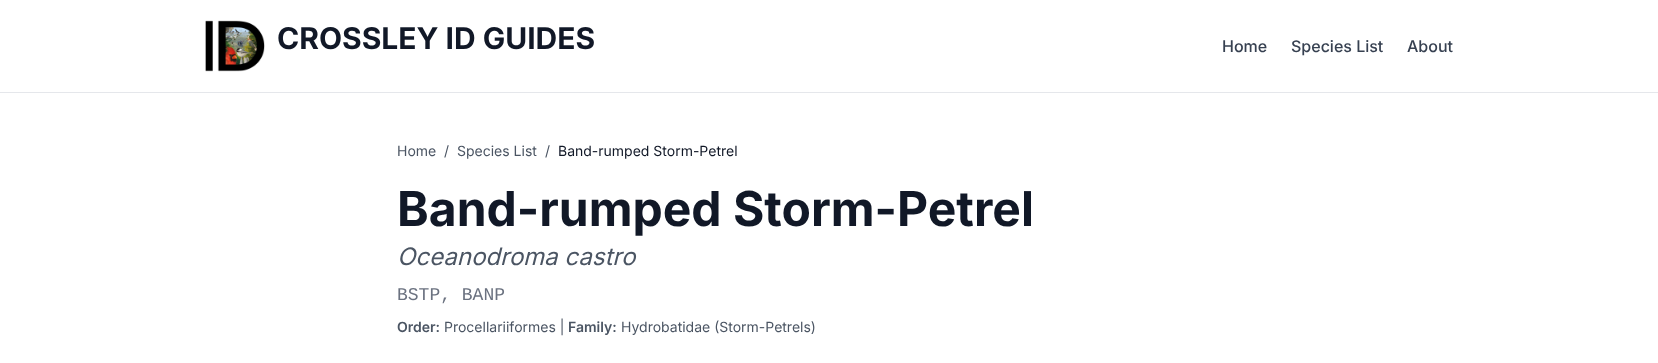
(async () => {
  const canvas = document.querySelector("canvas");
  canvas.width = 1658;
  canvas.height = 363;
  const ctx = canvas.getContext("2d");
  ctx.miterLimit = 4;
  ctx.fontKerning = "normal";
  async function loadImage(src) {
    const img = new Image();
    img.src = src;
    await img.decode();
    return img;
  }

  ctx.fillStyle = "#ffffff";
  ctx.fillRect(0, 0, 1658, 363);
  ctx.fillStyle = "#e5e7eb";
  ctx.fillRect(0, 92, 1658, 1);
  ctx.drawImage(await loadImage("img/1.png"), 205, 20, 60, 52);
  ctx.font = "bold 30px Inter";
  ctx.fillStyle = "#111827";
  ctx.fillText("CROSSLEY ID GUIDES", 277, 49);
  ctx.font = "500 16px Inter";
  ctx.fillStyle = "#374151";
  for (const [text, x, y] of [
    ["Home", 1222, 52],
    ["Species List", 1291, 52],
    ["About", 1407, 52],
  ]) {
    ctx.fillText(text, x, y);
  }
  ctx.font = "14px Inter";
  ctx.fillStyle = "#4b5563";
  for (const [text, x, y] of [
    ["Home", 397, 156],
    ["/", 444, 156],
    ["Species List", 457, 156],
    ["/", 545, 156],
  ]) {
    ctx.fillText(text, x, y);
  }
  ctx.fillStyle = "#111827";
  ctx.fillText("Band-rumped Storm-Petrel", 558, 156);
  ctx.font = "bold 48px Inter";
  ctx.fillText("Band-rumped Storm-Petrel", 397, 226);
  ctx.font = "italic 24px Inter";
  ctx.fillStyle = "#4b5563";
  ctx.fillText("Oceanodroma castro", 397, 265);
  ctx.font = "18px Liberation Mono";
  ctx.fillStyle = "#6b7280";
  ctx.fillText("BSTP, BANP", 397, 300);
  ctx.font = "600 14px Inter";
  ctx.fillStyle = "#4b5563";
  ctx.fillText("Order:", 397, 332);
  ctx.font = "14px Inter";
  ctx.fillText("Procellariiformes |", 444, 332);
  ctx.font = "600 14px Inter";
  ctx.fillText("Family:", 568, 332);
  ctx.font = "14px Inter";
  ctx.fillText("Hydrobatidae (Storm-Petrels)", 621, 332);
})();
